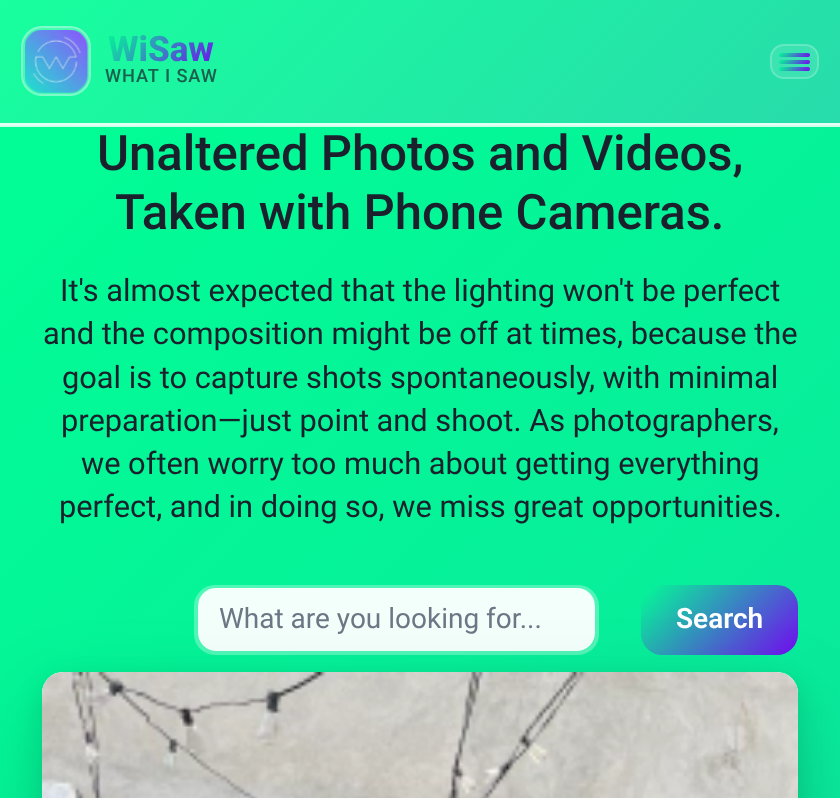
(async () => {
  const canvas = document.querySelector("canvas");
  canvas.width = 840;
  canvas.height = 798;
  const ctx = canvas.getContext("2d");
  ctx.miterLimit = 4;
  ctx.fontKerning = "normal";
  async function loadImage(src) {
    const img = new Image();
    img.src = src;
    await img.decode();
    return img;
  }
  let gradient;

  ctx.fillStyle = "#ffffff";
  ctx.fillRect(0, 0, 840, 798);
  gradient = ctx.createLinearGradient(-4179, 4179, 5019, 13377);
  gradient.addColorStop(0, "#00ff94");
  gradient.addColorStop(1, "#720cf0");
  ctx.fillStyle = gradient;
  ctx.fillRect(0, 127, 840, 671);
  gradient = ctx.createLinearGradient(-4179, 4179, 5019, 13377);
  gradient.addColorStop(0, "#ccffea");
  gradient.addColorStop(1, "#e3cefc");
  ctx.fillStyle = gradient;
  ctx.fillRect(0, 126, 840, 1);
  gradient = ctx.createLinearGradient(-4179, 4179, 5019, 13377);
  gradient.addColorStop(0, "#d6ffee");
  gradient.addColorStop(1, "#e9d8fd");
  ctx.fillStyle = gradient;
  ctx.fillRect(0, 125, 840, 1);
  gradient = ctx.createLinearGradient(-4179, 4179, 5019, 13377);
  gradient.addColorStop(0, "#e5fff4");
  gradient.addColorStop(1, "#f1e6fd");
  ctx.fillStyle = gradient;
  ctx.fillRect(0, 124, 840, 1);
  gradient = ctx.createLinearGradient(-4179, 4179, 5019, 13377);
  gradient.addColorStop(0, "#1aff9f");
  gradient.addColorStop(1, "#8024f2");
  ctx.fillStyle = gradient;
  ctx.fillRect(0, 0, 840, 123);
  gradient = ctx.createLinearGradient(-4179, 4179, 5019, 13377);
  gradient.addColorStop(0, "#e1fff3");
  gradient.addColorStop(1, "#efe3fd");
  ctx.fillStyle = gradient;
  ctx.fillRect(0, 123, 840, 1);
  gradient = ctx.createLinearGradient(179, -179, 661, 302);
  gradient.addColorStop(0, "rgba(0, 255, 148, 0.1)");
  gradient.addColorStop(1, "rgba(114, 12, 240, 0.1)");
  ctx.fillStyle = gradient;
  ctx.fillRect(0, 0, 840, 123);
  ctx.fillStyle = "rgba(255, 255, 255, 0.2)";
  ctx.beginPath();
  ctx.roundRect(21, 26, 70, 70, 21);
  ctx.fill();
  ctx.beginPath();
  ctx.roundRect(22, 27, 68, 68, 20);
  ctx.strokeStyle = "rgba(255, 255, 255, 0.3)";
  ctx.lineWidth = 2;
  ctx.stroke();
  ctx.drawImage(await loadImage("img/1.png"), 25, 30, 63, 63);
  ctx.fillStyle = "rgba(255, 255, 255, 0.1)";
  ctx.beginPath();
  ctx.roundRect(770, 44, 49, 35, 14);
  ctx.fill();
  ctx.beginPath();
  ctx.roundRect(771, 45, 47, 33, 13);
  ctx.strokeStyle = "rgba(255, 255, 255, 0.2)";
  ctx.stroke();
  gradient = ctx.createLinearGradient(786, 46, 803, 63);
  gradient.addColorStop(0, "#00ff94");
  gradient.addColorStop(1, "#720cf0");
  ctx.fillStyle = gradient;
  ctx.beginPath();
  ctx.roundRect(779, 53, 31, 4, 2);
  ctx.fill();
  gradient = ctx.createLinearGradient(786, 53, 803, 70);
  gradient.addColorStop(0, "#00ff94");
  gradient.addColorStop(1, "#720cf0");
  ctx.fillStyle = gradient;
  ctx.beginPath();
  ctx.roundRect(779, 60, 31, 4, 2);
  ctx.fill();
  gradient = ctx.createLinearGradient(786, 60, 803, 77);
  gradient.addColorStop(0, "#00ff94");
  gradient.addColorStop(1, "#720cf0");
  ctx.fillStyle = gradient;
  ctx.beginPath();
  ctx.roundRect(779, 67, 31, 4, 2);
  ctx.fill();
  ctx.fillStyle = "rgba(255, 255, 255, 0.95)";
  ctx.beginPath();
  ctx.roundRect(198, 588, 397, 63, 18);
  ctx.fill();
  ctx.beginPath();
  ctx.roundRect(196, 587, 401, 66, 19);
  ctx.strokeStyle = "rgba(255, 255, 255, 0.3)";
  ctx.lineWidth = 4;
  ctx.stroke();
  gradient = ctx.createLinearGradient(662, 563, 776, 676);
  gradient.addColorStop(0, "#00ff94");
  gradient.addColorStop(1, "#720cf0");
  ctx.fillStyle = gradient;
  ctx.beginPath();
  ctx.roundRect(641, 585, 157, 70, 21);
  ctx.fill();
  ctx.fillStyle = "rgba(0, 0, 0, 0.1)";
  ctx.filter = "blur(13px)";
  ctx.beginPath();
  ctx.roundRect(42, 681, 756, 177, 21);
  ctx.fill();
  ctx.filter = "none";
  ctx.fillStyle = "rgba(0, 0, 0, 0.15)";
  ctx.filter = "blur(44px)";
  ctx.beginPath();
  ctx.roundRect(42, 707, 756, 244, 21);
  ctx.fill();
  ctx.filter = "none";
  ctx.fillStyle = "#ffffff";
  ctx.beginPath();
  ctx.roundRect(42, 672, 756, 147, 21);
  ctx.fill();
  ctx.drawImage(await loadImage("img/2.png"), 42, 672, 756, 126);
  ctx.font = "800 35px Roboto";
  gradient = ctx.createLinearGradient(124, 12, 198, 85);
  gradient.addColorStop(0, "#00ff94");
  gradient.addColorStop(1, "#720cf0");
  ctx.fillStyle = gradient;
  ctx.fillText("WiSaw", 108, 61);
  ctx.letterSpacing = "0.9px";
  ctx.font = "500 18.25px Roboto";
  ctx.fillStyle = "#1a604f";
  ctx.fillText("WHAT I SAW", 105, 82);
  ctx.letterSpacing = "0px";
  ctx.font = "500 49px Roboto";
  ctx.fillStyle = "#1a202c";
  ctx.fillText("Unaltered Photos and Videos,", 97, 170);
  ctx.fillText("Taken with Phone Cameras.", 115, 229);
  ctx.font = "30.8px Roboto";
  for (const [text, x, y] of [
    ["It's almost expected that the lighting won't be perfect", 60, 301],
    ["and the composition might be off at times, because the", 43, 344],
    ["goal is to capture shots spontaneously, with minimal", 62, 388],
    ["preparation—just point and shoot. As photographers,", 61, 431],
    ["we often worry too much about getting everything", 81, 474],
    ["perfect, and in doing so, we miss great opportunities.", 59, 517],
  ]) {
    ctx.fillText(text, x, y);
  }
  ctx.font = "28px Roboto";
  ctx.fillStyle = "#6c7785";
  ctx.fillText("What are you looking for...", 219, 628);
  ctx.font = "600 28px Roboto";
  ctx.fillStyle = "#ffffff";
  ctx.fillText("Search", 676, 628);
})();
